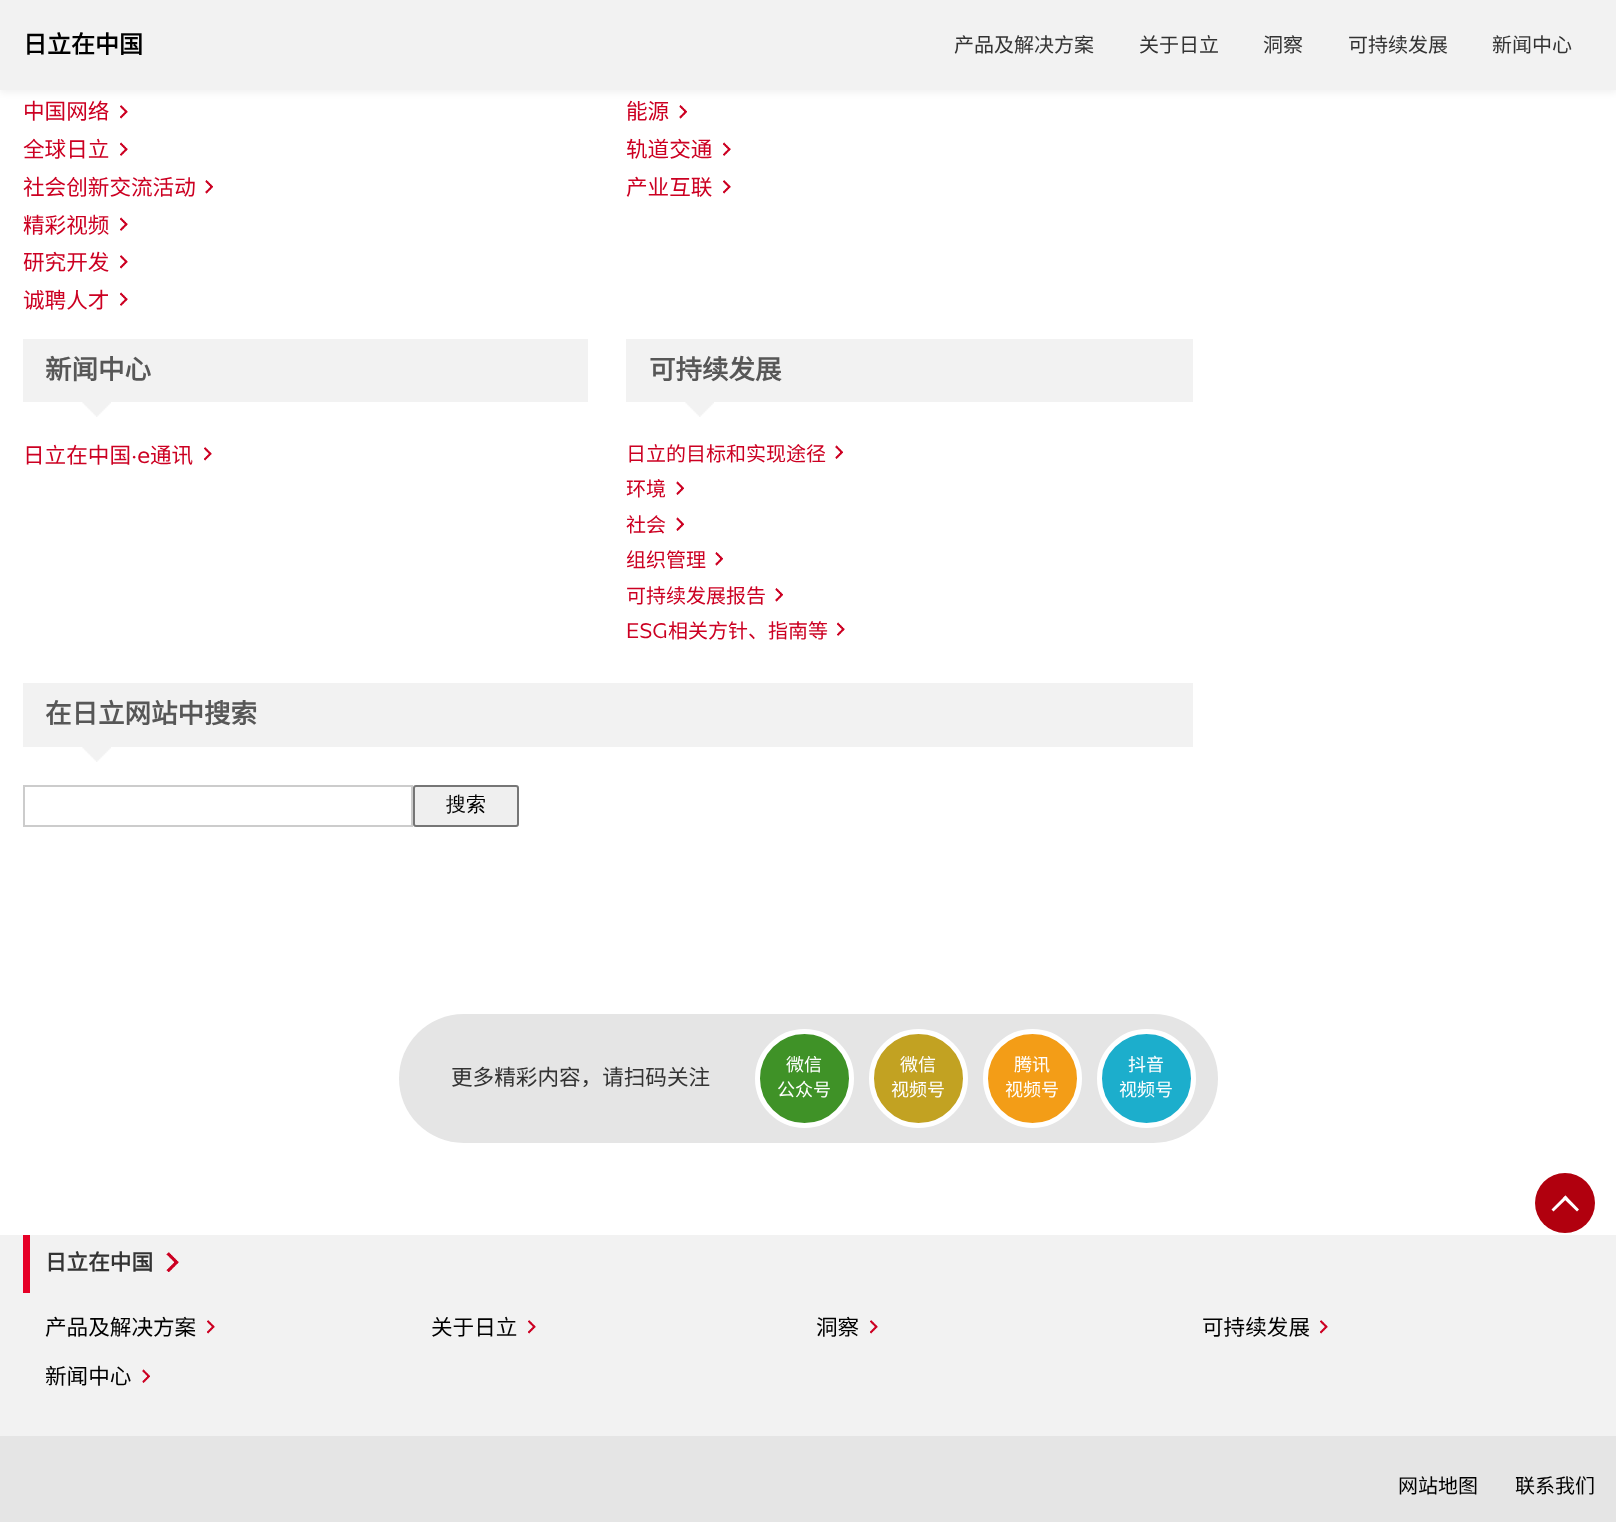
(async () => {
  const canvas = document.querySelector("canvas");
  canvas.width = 1616;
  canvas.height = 1522;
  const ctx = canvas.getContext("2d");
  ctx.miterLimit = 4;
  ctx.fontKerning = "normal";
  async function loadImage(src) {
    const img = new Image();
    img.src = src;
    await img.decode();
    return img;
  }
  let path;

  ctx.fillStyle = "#ffffff";
  ctx.fillRect(0, 0, 1616, 1522);
  ctx.fillStyle = "rgba(0, 0, 0, 0.05)";
  ctx.filter = "blur(3px)";
  ctx.beginPath();
  ctx.rect(0, 3, 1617, 90);
  ctx.fill();
  ctx.filter = "none";
  ctx.fillStyle = "#f2f2f2";
  ctx.fillRect(0, 0, 1616, 90);
  ctx.drawImage(await loadImage("img/1.png"), 120, 105, 8, 14);
  ctx.drawImage(await loadImage("img/2.png"), 120, 142, 8, 14);
  ctx.drawImage(await loadImage("img/3.png"), 205, 180, 8, 14);
  ctx.drawImage(await loadImage("img/2.png"), 120, 217, 8, 14);
  ctx.drawImage(await loadImage("img/1.png"), 120, 255, 8, 14);
  ctx.drawImage(await loadImage("img/2.png"), 120, 292, 8, 14);
  ctx.drawImage(await loadImage("img/4.png"), 679, 105, 8, 14);
  ctx.drawImage(await loadImage("img/5.png"), 723, 142, 8, 14);
  ctx.drawImage(await loadImage("img/6.png"), 723, 180, 8, 14);
  ctx.drawImage(await loadImage("img/7.png"), 82, 402, 29, 15);
  ctx.fillRect(23, 339, 565, 63);
  ctx.drawImage(await loadImage("img/1.png"), 204, 447, 8, 14);
  ctx.drawImage(await loadImage("img/8.png"), 685, 402, 29, 15);
  ctx.fillRect(626, 339, 567, 63);
  ctx.drawImage(await loadImage("img/9.png"), 835, 445, 8, 14);
  ctx.drawImage(await loadImage("img/10.png"), 676, 481, 8, 14);
  ctx.drawImage(await loadImage("img/10.png"), 676, 517, 8, 14);
  ctx.drawImage(await loadImage("img/4.png"), 715, 552, 8, 14);
  ctx.drawImage(await loadImage("img/3.png"), 775, 588, 8, 14);
  ctx.drawImage(await loadImage("img/2.png"), 837, 622, 8, 14);
  ctx.drawImage(await loadImage("img/7.png"), 82, 747, 29, 15);
  ctx.fillRect(23, 683, 1170, 64);
  ctx.strokeStyle = "#cccccc";
  ctx.lineWidth = 2;
  ctx.strokeRect(24, 786, 388, 40);
  ctx.fillStyle = "#efefef";
  ctx.beginPath();
  ctx.roundRect(414, 786, 104, 40, 2);
  ctx.fill();
  ctx.strokeStyle = "#767676";
  ctx.stroke();
  ctx.fillStyle = "#e5e5e5";
  ctx.beginPath();
  ctx.roundRect(399, 1014, 819, 129, 64.5);
  ctx.fill();
  ctx.fillStyle = "#3f9227";
  ctx.beginPath();
  ctx.arc(804.5, 1078.5, 47, 0, Math.PI * 2);
  ctx.fill();
  ctx.strokeStyle = "#ffffff";
  ctx.lineWidth = 5;
  ctx.stroke();
  ctx.fillStyle = "#c2a222";
  ctx.beginPath();
  ctx.arc(918.5, 1078.5, 47, 0, Math.PI * 2);
  ctx.fill();
  ctx.stroke();
  ctx.fillStyle = "#f39d17";
  ctx.beginPath();
  ctx.arc(1032.5, 1078.5, 47, 0, Math.PI * 2);
  ctx.fill();
  ctx.stroke();
  ctx.fillStyle = "#1caecc";
  ctx.beginPath();
  ctx.arc(1146.5, 1078.5, 47, 0, Math.PI * 2);
  ctx.fill();
  ctx.stroke();
  ctx.fillStyle = "#f2f2f2";
  ctx.fillRect(0, 1235, 1616, 201);
  ctx.fillStyle = "#e60027";
  ctx.fillRect(23, 1235, 7, 58);
  ctx.drawImage(await loadImage("img/11.png"), 166, 1252, 13, 20);
  ctx.drawImage(await loadImage("img/12.png"), 207, 1320, 8, 14);
  ctx.drawImage(await loadImage("img/12.png"), 528, 1320, 8, 14);
  ctx.drawImage(await loadImage("img/12.png"), 870, 1320, 8, 14);
  ctx.drawImage(await loadImage("img/12.png"), 1320, 1320, 8, 14);
  ctx.drawImage(await loadImage("img/13.png"), 142, 1369, 8, 14);
  ctx.fillStyle = "#e5e5e5";
  ctx.fillRect(0, 1436, 1616, 86);
  ctx.fillStyle = "#b1000e";
  ctx.beginPath();
  ctx.arc(1565, 1203, 30, 0, Math.PI * 2);
  ctx.fill();
  ctx.fillStyle = "#ffffff";
  path = new Path2D("M1551.5 1209.5L1565.5 1195.5L1567.5 1198L1553.5 1211.5Z");
  ctx.fill(path);
  path = new Path2D("M1563 1198L1565.5 1195.5L1579 1209.5L1577 1211.5Z");
  ctx.fill(path);
  ctx.font = "bold 24px Noto Sans SC";
  ctx.fillStyle = "#000000";
  ctx.fillText("日立在中国", 23, 53);
  ctx.font = "100 20px Noto Sans SC";
  ctx.fillStyle = "#333333";
  for (const [text, x, y] of [
    ["产品及解决方案", 954, 52],
    ["关于日立", 1139, 52],
    ["洞察", 1263, 52],
    ["可持续发展", 1348, 52],
    ["新闻中心", 1492, 52],
  ]) {
    ctx.fillText(text, x, y);
  }
  ctx.font = "100 21.6px Noto Sans SC";
  ctx.fillStyle = "#cc0022";
  for (const [text, x, y] of [
    ["中国网络", 23, 119],
    ["全球日立", 23, 157],
    ["社会创新交流活动", 23, 195],
    ["精彩视频", 23, 233],
    ["研究开发", 23, 270],
    ["诚聘人才", 23, 308],
    ["能源", 626, 119],
    ["轨道交通", 626, 157],
    ["产业互联", 626, 195],
  ]) {
    ctx.fillText(text, x, y);
  }
  ctx.font = "bold 26.5px Noto Sans SC";
  ctx.fillStyle = "#575757";
  ctx.fillText("新闻中心", 45, 379);
  ctx.font = "100 21.6px Noto Sans SC";
  ctx.fillStyle = "#cc0022";
  ctx.fillText("日立在中国", 23, 463);
  ctx.font = "21.6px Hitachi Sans";
  ctx.fillText("·e", 131, 463);
  ctx.font = "100 21.6px Noto Sans SC";
  ctx.fillText("通讯", 150, 463);
  ctx.font = "bold 26.5px Noto Sans SC";
  ctx.fillStyle = "#575757";
  ctx.fillText("可持续发展", 649, 379);
  ctx.font = "100 20px Noto Sans SC";
  ctx.fillStyle = "#cc0022";
  for (const [text, x, y] of [
    ["日立的目标和实现途径", 626, 461],
    ["环境", 626, 496],
    ["社会", 626, 532],
    ["组织管理", 626, 567],
    ["可持续发展报告", 626, 603],
  ]) {
    ctx.fillText(text, x, y);
  }
  ctx.font = "20px Hitachi Sans";
  ctx.fillText("ESG", 626, 638);
  ctx.font = "100 20px Noto Sans SC";
  ctx.fillText("相关方针、指南等", 668, 638);
  ctx.font = "bold 26.5px Noto Sans SC";
  ctx.fillStyle = "#575757";
  ctx.fillText("在日立网站中搜索", 45, 723);
  ctx.font = "500 20px WenQuanYi Zen Hei";
  ctx.fillStyle = "#000000";
  ctx.fillText("搜索", 446, 811);
  ctx.font = "100 21.6px Noto Sans SC";
  ctx.fillStyle = "#333333";
  ctx.fillText("更多精彩内容，请扫码关注", 451, 1085);
  ctx.font = "100 18px Noto Sans SC";
  ctx.fillStyle = "#ffffff";
  for (const [text, x, y] of [
    ["微信", 786, 1071],
    ["公众号", 777, 1096],
    ["微信", 900, 1071],
    ["视频号", 891, 1096],
    ["腾讯", 1014, 1071],
    ["视频号", 1005, 1096],
    ["抖音", 1128, 1071],
    ["视频号", 1119, 1096],
  ]) {
    ctx.fillText(text, x, y);
  }
  ctx.font = "bold 21.6px Noto Sans SC";
  ctx.fillStyle = "#333333";
  ctx.fillText("日立在中国", 45, 1270);
  ctx.font = "100 21.6px Noto Sans SC";
  ctx.fillStyle = "#000000";
  for (const [text, x, y] of [
    ["产品及解决方案", 45, 1335],
    ["关于日立", 431, 1335],
    ["洞察", 816, 1335],
    ["可持续发展", 1202, 1335],
    ["新闻中心", 45, 1384],
  ]) {
    ctx.fillText(text, x, y);
  }
  ctx.font = "100 20px Noto Sans SC";
  ctx.fillText("网站地图", 1398, 1493);
  ctx.fillText("联系我们", 1515, 1493);
})();
